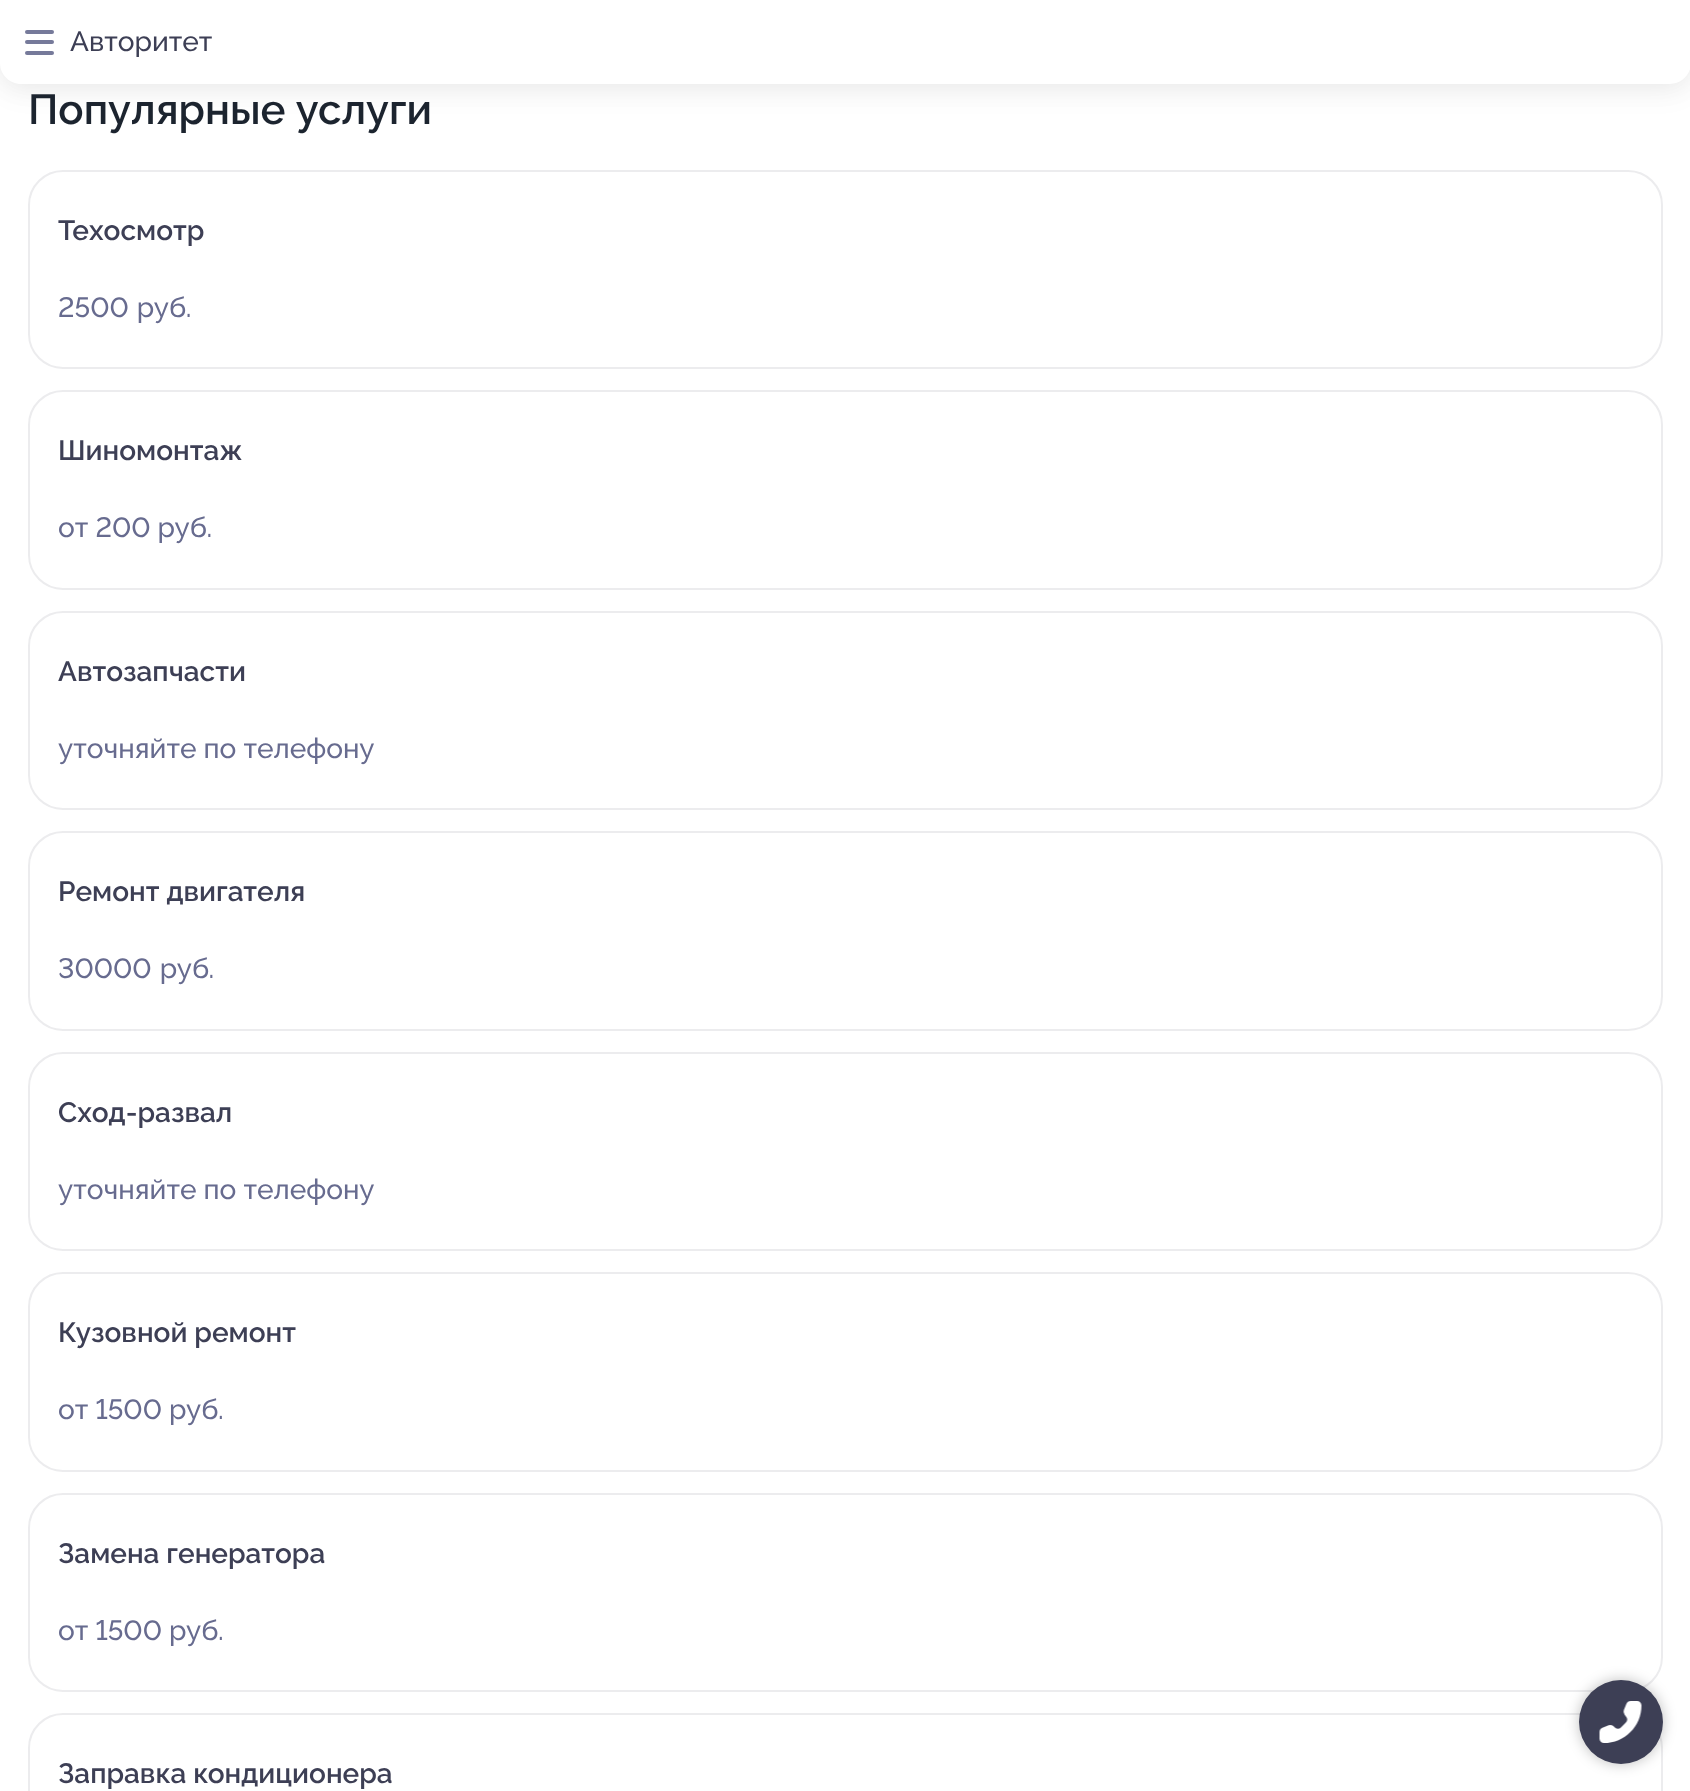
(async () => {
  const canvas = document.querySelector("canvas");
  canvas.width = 1690;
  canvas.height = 1791;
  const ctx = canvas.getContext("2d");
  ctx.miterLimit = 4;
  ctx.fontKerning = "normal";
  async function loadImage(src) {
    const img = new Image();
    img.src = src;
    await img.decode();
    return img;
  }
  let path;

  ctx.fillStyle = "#ffffff";
  ctx.fillRect(0, 0, 1690, 1791);
  ctx.fillStyle = "rgba(0, 0, 0, 0.05)";
  ctx.filter = "blur(14px)";
  ctx.beginPath();
  ctx.roundRect(0, 7, 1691, 84, 21);
  ctx.fill();
  ctx.filter = "none";
  ctx.filter = "blur(14px)";
  ctx.beginPath();
  ctx.roundRect(0, 0, 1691, 84, 21);
  ctx.fill();
  ctx.filter = "none";
  ctx.fillStyle = "#ffffff";
  path = new Path2D("M0 0H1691V63C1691 74.5 1681.5 84 1670 84H21C9.5 84 0 74.5 0 63Z");
  ctx.fill(path);
  ctx.fillStyle = "#767a9a";
  ctx.beginPath();
  ctx.roundRect(25, 40, 29, 4, 2);
  ctx.fill();
  ctx.beginPath();
  ctx.roundRect(25, 30, 29, 4, 2);
  ctx.fill();
  ctx.beginPath();
  ctx.roundRect(25, 51, 29, 4, 2);
  ctx.fill();
  ctx.beginPath();
  ctx.roundRect(29, 171, 1633, 197, 34);
  ctx.strokeStyle = "#ececee";
  ctx.lineWidth = 2;
  ctx.stroke();
  ctx.beginPath();
  ctx.roundRect(29, 391, 1633, 198, 34);
  ctx.stroke();
  ctx.beginPath();
  ctx.roundRect(29, 612, 1633, 197, 34);
  ctx.stroke();
  ctx.beginPath();
  ctx.roundRect(29, 832, 1633, 198, 34);
  ctx.stroke();
  ctx.beginPath();
  ctx.roundRect(29, 1053, 1633, 197, 34);
  ctx.stroke();
  ctx.beginPath();
  ctx.roundRect(29, 1273, 1633, 198, 34);
  ctx.stroke();
  ctx.beginPath();
  ctx.roundRect(29, 1494, 1633, 197, 34);
  ctx.stroke();
  ctx.beginPath();
  ctx.roundRect(29, 1714, 1633, 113, 34);
  ctx.stroke();
  ctx.fillStyle = "rgba(0, 0, 0, 0.25)";
  ctx.filter = "blur(7px)";
  ctx.beginPath();
  ctx.roundRect(1579, 1680, 84, 84, 42);
  ctx.fill();
  ctx.filter = "none";
  ctx.fillStyle = "#3d3f55";
  ctx.beginPath();
  ctx.arc(1621, 1722, 42, 0, Math.PI * 2);
  ctx.fill();
  ctx.drawImage(await loadImage("img/1.png"), 1599, 1701, 43, 42);
  ctx.font = "500 28px Raleway";
  ctx.fillText("Авторитет", 70, 51);
  ctx.wordSpacing = "1px";
  ctx.font = "600 42px Raleway";
  ctx.fillStyle = "#1c242f";
  ctx.fillText("Популярные услуги", 28, 124);
  ctx.wordSpacing = "0px";
  ctx.font = "600 28px Raleway";
  ctx.fillStyle = "#3d3f55";
  ctx.fillText("Техосмотр", 58, 240);
  ctx.wordSpacing = "1px";
  ctx.font = "500 28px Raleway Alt";
  ctx.fillStyle = "#676b8f";
  ctx.fillText("2500 руб.", 58, 317);
  ctx.wordSpacing = "0px";
  ctx.font = "600 28px Raleway";
  ctx.fillStyle = "#3d3f55";
  ctx.fillText("Шиномонтаж", 58, 460);
  ctx.font = "500 28px Raleway Alt";
  ctx.fillStyle = "#676b8f";
  ctx.fillText("от 200 руб.", 58, 537);
  ctx.font = "600 28px Raleway";
  ctx.fillStyle = "#3d3f55";
  ctx.fillText("Автозапчасти", 58, 681);
  ctx.font = "500 28px Raleway";
  ctx.fillStyle = "#676b8f";
  ctx.fillText("уточняйте по телефону", 58, 758);
  ctx.font = "600 28px Raleway";
  ctx.fillStyle = "#3d3f55";
  ctx.fillText("Ремонт двигателя", 58, 901);
  ctx.wordSpacing = "1px";
  ctx.font = "500 28px Raleway Alt";
  ctx.fillStyle = "#676b8f";
  ctx.fillText("30000 руб.", 58, 978);
  ctx.wordSpacing = "0px";
  ctx.font = "600 28px Raleway";
  ctx.fillStyle = "#3d3f55";
  ctx.fillText("Сход-развал", 58, 1122);
  ctx.font = "500 28px Raleway";
  ctx.fillStyle = "#676b8f";
  ctx.fillText("уточняйте по телефону", 58, 1199);
  ctx.font = "600 28px Raleway";
  ctx.fillStyle = "#3d3f55";
  ctx.fillText("Кузовной ремонт", 58, 1342);
  ctx.font = "500 28px Raleway Alt";
  ctx.fillStyle = "#676b8f";
  ctx.fillText("от 1500 руб.", 58, 1419);
  ctx.font = "600 28px Raleway";
  ctx.fillStyle = "#3d3f55";
  ctx.fillText("Замена генератора", 58, 1563);
  ctx.font = "500 28px Raleway Alt";
  ctx.fillStyle = "#676b8f";
  ctx.fillText("от 1500 руб.", 58, 1640);
  ctx.font = "600 28px Raleway";
  ctx.fillStyle = "#3d3f55";
  ctx.fillText("Заправка кондиционера", 58, 1783);
})();
